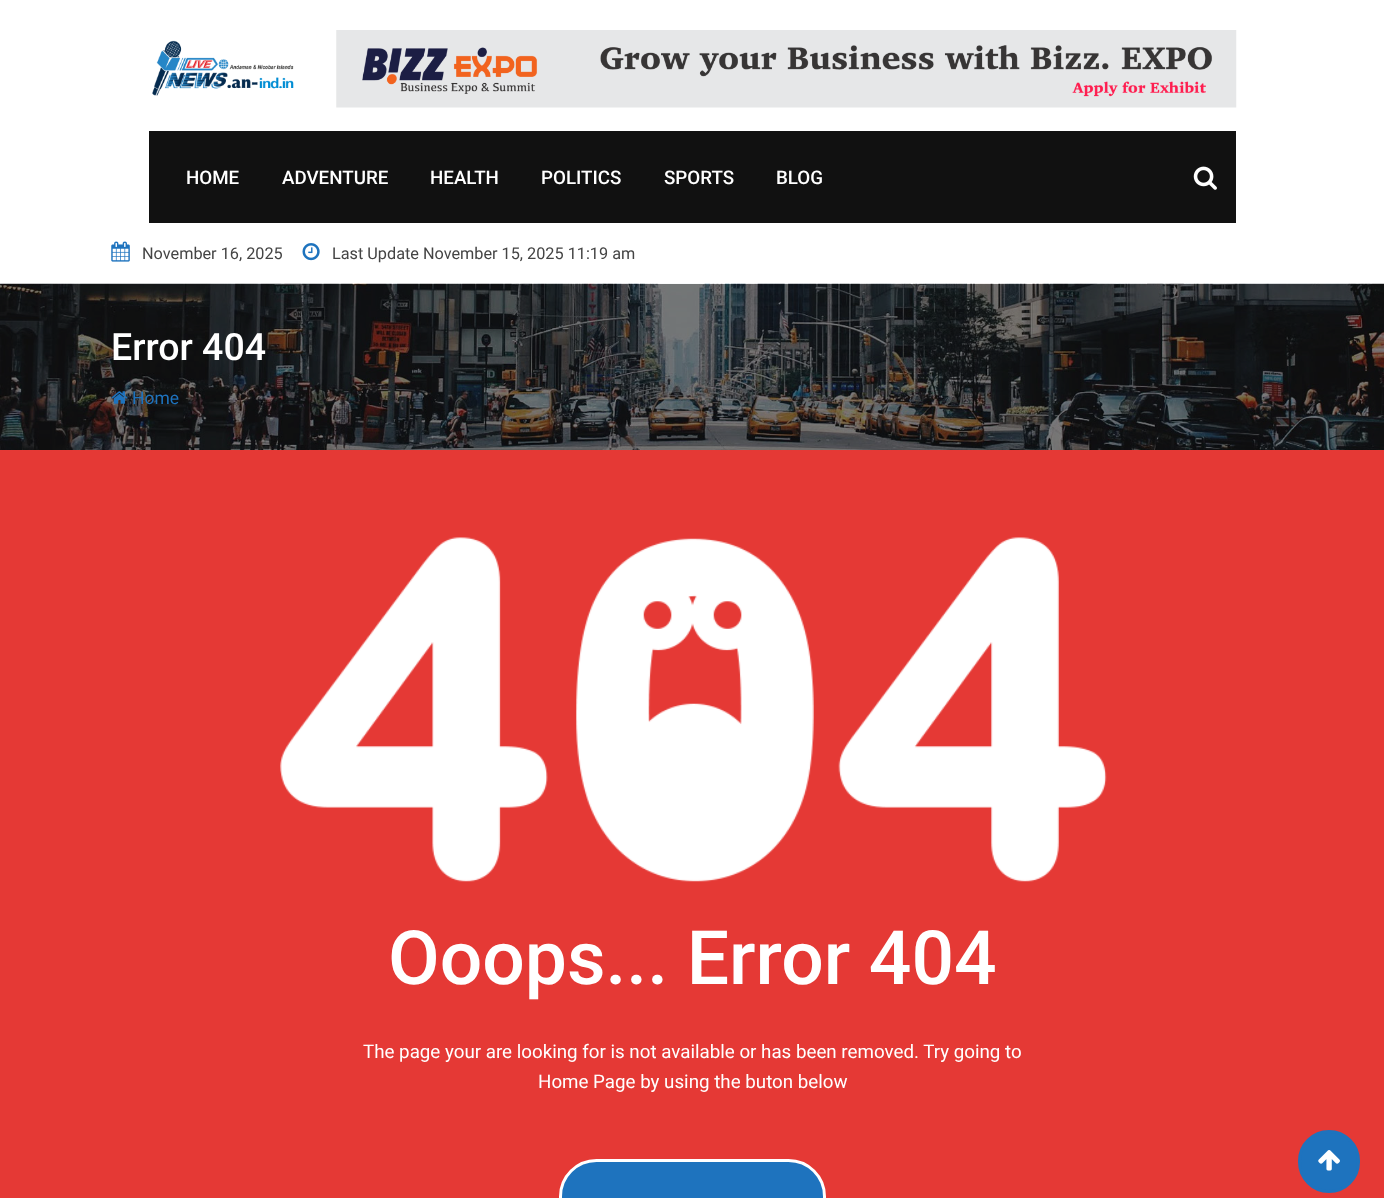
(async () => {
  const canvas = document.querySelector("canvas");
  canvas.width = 1384;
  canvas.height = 1198;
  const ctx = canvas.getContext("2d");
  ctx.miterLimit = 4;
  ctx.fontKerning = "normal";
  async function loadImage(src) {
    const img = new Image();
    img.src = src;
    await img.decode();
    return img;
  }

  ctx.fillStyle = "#ffffff";
  ctx.fillRect(0, 0, 1384, 1198);
  ctx.drawImage(await loadImage("img/1.png"), 152, 40, 142, 56);
  ctx.drawImage(await loadImage("img/2.png"), 336, 30, 901, 78);
  ctx.fillStyle = "#111111";
  ctx.fillRect(149, 131, 1087, 92);
  ctx.drawImage(await loadImage("img/3.png"), 1193, 166, 24, 24);
  ctx.drawImage(await loadImage("img/4.png"), 111, 241, 19, 21);
  ctx.drawImage(await loadImage("img/5.png"), 302, 243, 18, 18);
  ctx.drawImage(await loadImage("img/6.png"), 0, 283, 1384, 167);
  ctx.drawImage(await loadImage("img/7.png"), 111, 391, 17, 13);
  ctx.fillStyle = "#e53935";
  ctx.fillRect(0, 450, 1384, 748);
  ctx.drawImage(await loadImage("img/8.png"), 280, 537, 827, 345);
  ctx.fillStyle = "#1e73be";
  ctx.beginPath();
  ctx.roundRect(560.5, 1160.5, 264, 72, 36);
  ctx.fill();
  ctx.strokeStyle = "#ffffff";
  ctx.lineWidth = 3;
  ctx.stroke();
  ctx.beginPath();
  ctx.roundRect(1299.5, 1131.5, 59, 60, 29.5);
  ctx.fill();
  ctx.strokeStyle = "#1e73be";
  ctx.stroke();
  ctx.drawImage(await loadImage("img/9.png"), 1318, 1150, 22, 21);
  ctx.font = "500 18.75px Roboto";
  ctx.fillStyle = "#ffffff";
  for (const [text, x, y] of [
    ["HOME", 186, 184],
    ["ADVENTURE", 282, 184],
    ["HEALTH", 430, 184],
    ["POLITICS", 541, 184],
    ["SPORTS", 664, 184],
    ["BLOG", 776, 184],
  ]) {
    ctx.fillText(text, x, y);
  }
  ctx.font = "16.25px Roboto";
  ctx.fillStyle = "#444444";
  ctx.fillText("November 16, 2025", 142, 259);
  ctx.fillText("Last Update November 15, 2025 11:19 am", 332, 259);
  ctx.font = "500 37.5px Roboto";
  ctx.fillStyle = "#ffffff";
  ctx.fillText("Error 404", 111, 360);
  ctx.font = "17.5px Roboto";
  ctx.fillStyle = "#1e73be";
  ctx.fillText("Home", 132, 404);
  ctx.font = "italic 18.75px Roboto";
  ctx.fillStyle = "#444444";
  ctx.fillText("-", 184, 404);
  ctx.font = "500 75px Roboto";
  ctx.fillStyle = "#ffffff";
  ctx.fillText("Ooops... Error 404", 388, 984);
  ctx.font = "18.75px Roboto";
  ctx.fillText("The page your are looking for is not available or has been removed. Try going to", 363, 1058);
  ctx.fillText("Home Page by using the buton below", 538, 1088);
})();
